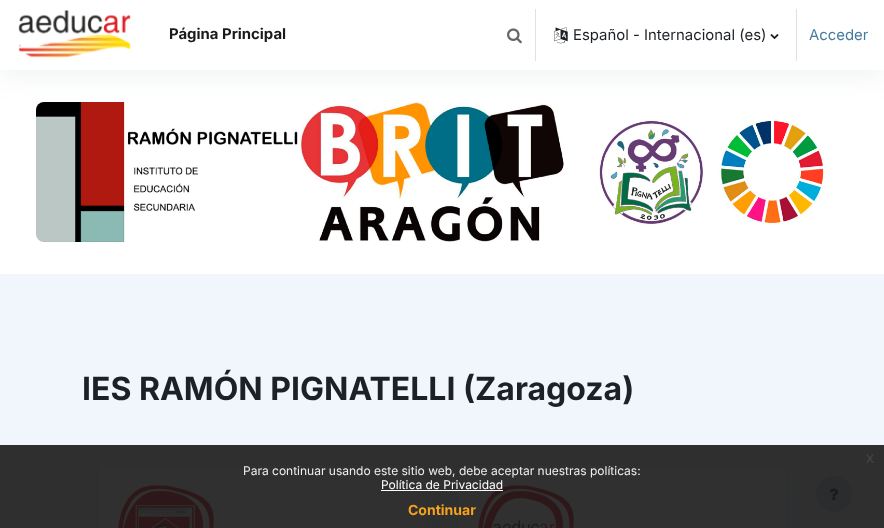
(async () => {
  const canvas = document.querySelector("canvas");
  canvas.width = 884;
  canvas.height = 528;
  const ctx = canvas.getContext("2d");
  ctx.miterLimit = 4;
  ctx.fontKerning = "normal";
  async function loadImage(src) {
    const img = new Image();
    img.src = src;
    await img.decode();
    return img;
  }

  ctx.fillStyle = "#ffffff";
  ctx.fillRect(0, 0, 884, 528);
  ctx.drawImage(await loadImage("img/5.png"), 36, 102, 789, 140);
  ctx.fillStyle = "rgba(140, 152, 164, 0.13)";
  ctx.filter = "blur(12px)";
  ctx.beginPath();
  ctx.rect(0, 6, 884, 70);
  ctx.fill();
  ctx.filter = "none";
  ctx.fillStyle = "#ffffff";
  ctx.fillRect(0, 0, 884, 70);
  ctx.drawImage(await loadImage("img/1.png"), 18, 10, 113, 50);
  ctx.drawImage(await loadImage("img/2.png"), 507, 28, 15, 16);
  ctx.fillStyle = "#dee2e6";
  ctx.fillRect(535, 9, 1, 52);
  ctx.drawImage(await loadImage("img/3.png"), 554, 27, 14, 17);
  ctx.drawImage(await loadImage("img/4.png"), 770, 34, 9, 6);
  ctx.fillRect(796, 9, 1, 52);
  ctx.fillStyle = "#f1f6fd";
  ctx.fillRect(0, 274, 884, 254);
  ctx.fillStyle = "rgba(140, 152, 164, 0.13)";
  ctx.filter = "blur(12px)";
  ctx.beginPath();
  ctx.roundRect(97, 470, 330, 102, 8);
  ctx.fill();
  ctx.filter = "none";
  ctx.fillStyle = "#ffffff";
  ctx.beginPath();
  ctx.roundRect(97.5, 464.5, 329, 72, 7.5);
  ctx.fill();
  ctx.strokeStyle = "#e2e8f0";
  ctx.stroke();
  ctx.drawImage(await loadImage("img/6.png"), 118, 485, 96, 43);
  ctx.fillStyle = "rgba(140, 152, 164, 0.13)";
  ctx.filter = "blur(12px)";
  ctx.beginPath();
  ctx.roundRect(457, 470, 330, 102, 8);
  ctx.fill();
  ctx.filter = "none";
  ctx.fillStyle = "#ffffff";
  ctx.beginPath();
  ctx.roundRect(457.5, 464.5, 329, 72, 7.5);
  ctx.fill();
  ctx.stroke();
  ctx.drawImage(await loadImage("img/7.png"), 478, 485, 96, 43);
  ctx.fillStyle = "#ced4da";
  ctx.beginPath();
  ctx.arc(834, 494, 18, 0, Math.PI * 2);
  ctx.fill();
  ctx.drawImage(await loadImage("img/8.png"), 829, 488, 10, 12);
  ctx.fillStyle = "rgba(25, 25, 25, 0.9)";
  ctx.fillRect(0, 445, 884, 83);
  ctx.fillStyle = "#ffffff";
  ctx.fillRect(381, 490, 122, 1);
  ctx.font = "bold 14.9px Inter";
  ctx.fillStyle = "#1a1a1a";
  ctx.fillText("Página Principal", 169, 39);
  ctx.font = "14.9px Inter";
  ctx.fillStyle = "#1d2125";
  ctx.fillText("Español - Internacional (es)", 573, 40);
  ctx.fillStyle = "#457b9d";
  ctx.fillText("Acceder", 809, 40);
  ctx.font = "bold 32px Inter";
  ctx.fillStyle = "#1d2125";
  ctx.fillText("IES RAMÓN PIGNATELLI (Zaragoza)", 82, 400);
  ctx.font = "16px Liberation Sans";
  ctx.fillStyle = "#464647";
  ctx.fillText("x", 866, 463);
  ctx.font = "12px Inter";
  ctx.fillStyle = "#efefef";
  ctx.fillText("Para continuar usando este sitio web, debe aceptar nuestras políticas:", 243, 475);
  ctx.fillStyle = "#ffffff";
  ctx.fillText("Política de Privacidad", 381, 489);
  ctx.font = "bold 14px Inter";
  ctx.fillStyle = "#f6a21d";
  ctx.fillText("Continuar", 408, 515);
})();
